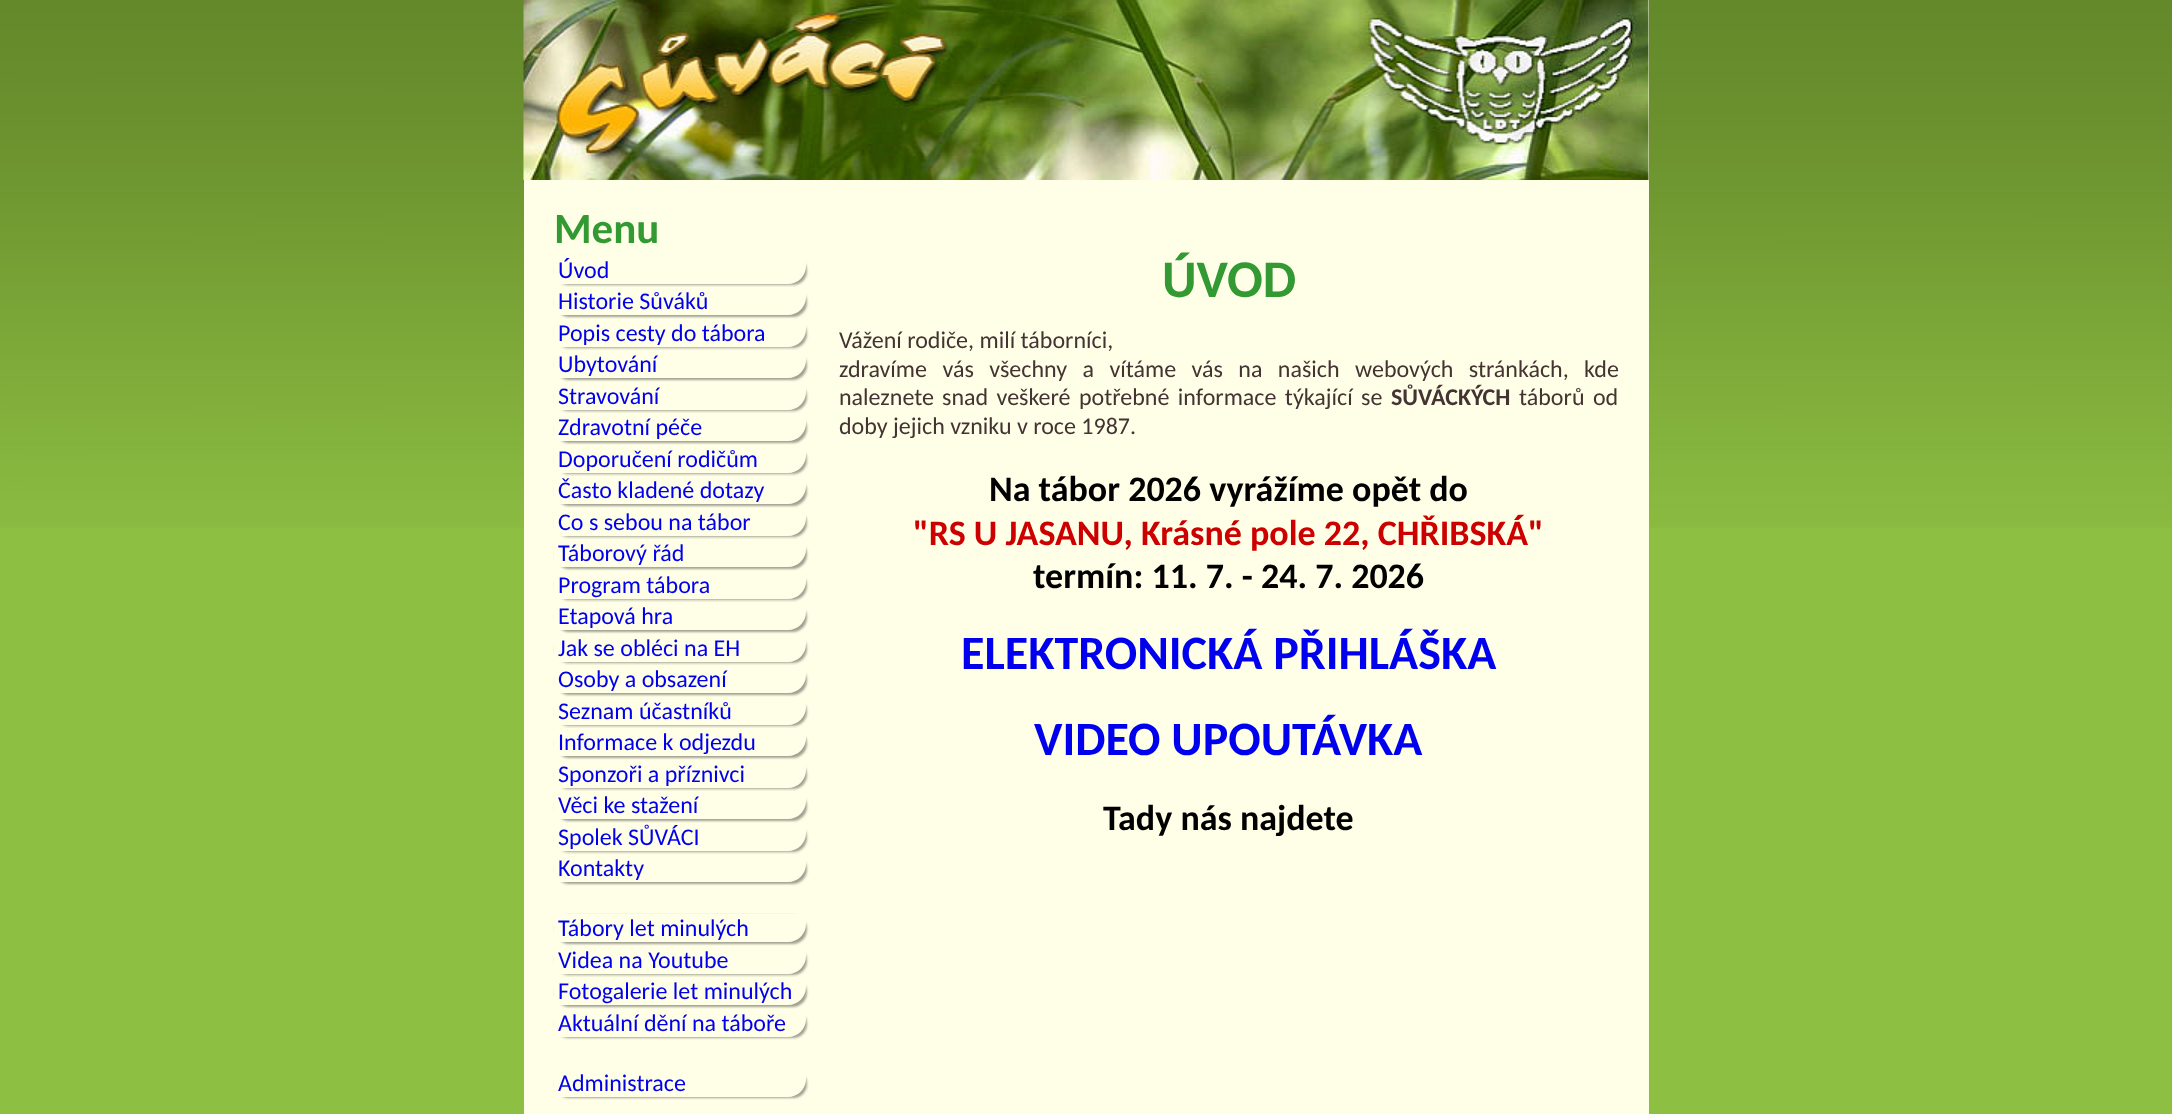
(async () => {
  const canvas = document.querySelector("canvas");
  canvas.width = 2172;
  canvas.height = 1114;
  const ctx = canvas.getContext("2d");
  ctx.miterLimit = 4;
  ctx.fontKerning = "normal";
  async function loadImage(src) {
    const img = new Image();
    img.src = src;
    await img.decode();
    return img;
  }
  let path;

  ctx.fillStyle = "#8dbf42";
  ctx.fillRect(0, 0, 2172, 1114);
  ctx.drawImage(await loadImage("img/1.png"), 0, 0, 2172, 528);
  ctx.fillStyle = "#ffffe8";
  ctx.fillRect(524, 0, 1125, 1114);
  ctx.drawImage(await loadImage("img/2.png"), 523, 0, 1126, 180);
  ctx.save();
  path = new Path2D("M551 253H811V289H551ZM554 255H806V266C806 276 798 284 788 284H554Z");
  ctx.clip(path, "evenodd");
  ctx.fillStyle = "rgba(20, 20, 20, 0.4)";
  ctx.filter = "blur(1px)";
  ctx.beginPath();
  ctx.roundRect(555, 257, 252, 28, 18);
  ctx.fill();
  ctx.filter = "none";
  ctx.restore();
  ctx.save();
  path = new Path2D("M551 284H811V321H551ZM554 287H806V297C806 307 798 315 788 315H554Z");
  ctx.clip(path, "evenodd");
  ctx.fillStyle = "rgba(20, 20, 20, 0.4)";
  ctx.filter = "blur(1px)";
  ctx.beginPath();
  ctx.roundRect(555, 288, 252, 29, 18);
  ctx.fill();
  ctx.filter = "none";
  ctx.restore();
  ctx.save();
  path = new Path2D("M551 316H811V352H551ZM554 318H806V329C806 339 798 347 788 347H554Z");
  ctx.clip(path, "evenodd");
  ctx.fillStyle = "rgba(20, 20, 20, 0.4)";
  ctx.filter = "blur(1px)";
  ctx.beginPath();
  ctx.roundRect(555, 320, 252, 28, 18);
  ctx.fill();
  ctx.filter = "none";
  ctx.restore();
  ctx.save();
  path = new Path2D("M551 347H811V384H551ZM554 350H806V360C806 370 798 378 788 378H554Z");
  ctx.clip(path, "evenodd");
  ctx.fillStyle = "rgba(20, 20, 20, 0.4)";
  ctx.filter = "blur(1px)";
  ctx.beginPath();
  ctx.roundRect(555, 351, 252, 29, 18);
  ctx.fill();
  ctx.filter = "none";
  ctx.restore();
  ctx.save();
  path = new Path2D("M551 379H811V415H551ZM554 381H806V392C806 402 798 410 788 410H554Z");
  ctx.clip(path, "evenodd");
  ctx.fillStyle = "rgba(20, 20, 20, 0.4)";
  ctx.filter = "blur(1px)";
  ctx.beginPath();
  ctx.roundRect(555, 383, 252, 28, 18);
  ctx.fill();
  ctx.filter = "none";
  ctx.restore();
  ctx.save();
  path = new Path2D("M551 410H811V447H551ZM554 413H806V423C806 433 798 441 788 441H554Z");
  ctx.clip(path, "evenodd");
  ctx.fillStyle = "rgba(20, 20, 20, 0.4)";
  ctx.filter = "blur(1px)";
  ctx.beginPath();
  ctx.roundRect(555, 414, 252, 29, 18);
  ctx.fill();
  ctx.filter = "none";
  ctx.restore();
  ctx.save();
  path = new Path2D("M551 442H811V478H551ZM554 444H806V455C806 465 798 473 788 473H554Z");
  ctx.clip(path, "evenodd");
  ctx.fillStyle = "rgba(20, 20, 20, 0.4)";
  ctx.filter = "blur(1px)";
  ctx.beginPath();
  ctx.roundRect(555, 446, 252, 28, 18);
  ctx.fill();
  ctx.filter = "none";
  ctx.restore();
  ctx.save();
  path = new Path2D("M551 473H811V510H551ZM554 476H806V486C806 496 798 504 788 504H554Z");
  ctx.clip(path, "evenodd");
  ctx.fillStyle = "rgba(20, 20, 20, 0.4)";
  ctx.filter = "blur(1px)";
  ctx.beginPath();
  ctx.roundRect(555, 477, 252, 29, 18);
  ctx.fill();
  ctx.filter = "none";
  ctx.restore();
  ctx.save();
  path = new Path2D("M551 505H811V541H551ZM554 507H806V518C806 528 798 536 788 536H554Z");
  ctx.clip(path, "evenodd");
  ctx.fillStyle = "rgba(20, 20, 20, 0.4)";
  ctx.filter = "blur(1px)";
  ctx.beginPath();
  ctx.roundRect(555, 509, 252, 28, 18);
  ctx.fill();
  ctx.filter = "none";
  ctx.restore();
  ctx.save();
  path = new Path2D("M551 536H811V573H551ZM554 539H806V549C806 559 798 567 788 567H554Z");
  ctx.clip(path, "evenodd");
  ctx.fillStyle = "rgba(20, 20, 20, 0.4)";
  ctx.filter = "blur(1px)";
  ctx.beginPath();
  ctx.roundRect(555, 540, 252, 29, 18);
  ctx.fill();
  ctx.filter = "none";
  ctx.restore();
  ctx.save();
  path = new Path2D("M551 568H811V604H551ZM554 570H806V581C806 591 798 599 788 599H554Z");
  ctx.clip(path, "evenodd");
  ctx.fillStyle = "rgba(20, 20, 20, 0.4)";
  ctx.filter = "blur(1px)";
  ctx.beginPath();
  ctx.roundRect(555, 572, 252, 28, 18);
  ctx.fill();
  ctx.filter = "none";
  ctx.restore();
  ctx.save();
  path = new Path2D("M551 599H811V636H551ZM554 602H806V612C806 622 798 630 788 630H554Z");
  ctx.clip(path, "evenodd");
  ctx.fillStyle = "rgba(20, 20, 20, 0.4)";
  ctx.filter = "blur(1px)";
  ctx.beginPath();
  ctx.roundRect(555, 603, 252, 29, 18);
  ctx.fill();
  ctx.filter = "none";
  ctx.restore();
  ctx.save();
  path = new Path2D("M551 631H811V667H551ZM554 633H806V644C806 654 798 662 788 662H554Z");
  ctx.clip(path, "evenodd");
  ctx.fillStyle = "rgba(20, 20, 20, 0.4)";
  ctx.filter = "blur(1px)";
  ctx.beginPath();
  ctx.roundRect(555, 635, 252, 28, 18);
  ctx.fill();
  ctx.filter = "none";
  ctx.restore();
  ctx.save();
  path = new Path2D("M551 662H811V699H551ZM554 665H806V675C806 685 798 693 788 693H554Z");
  ctx.clip(path, "evenodd");
  ctx.fillStyle = "rgba(20, 20, 20, 0.4)";
  ctx.filter = "blur(1px)";
  ctx.beginPath();
  ctx.roundRect(555, 666, 252, 29, 18);
  ctx.fill();
  ctx.filter = "none";
  ctx.restore();
  ctx.save();
  path = new Path2D("M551 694H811V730H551ZM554 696H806V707C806 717 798 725 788 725H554Z");
  ctx.clip(path, "evenodd");
  ctx.fillStyle = "rgba(20, 20, 20, 0.4)";
  ctx.filter = "blur(1px)";
  ctx.beginPath();
  ctx.roundRect(555, 698, 252, 28, 18);
  ctx.fill();
  ctx.filter = "none";
  ctx.restore();
  ctx.save();
  path = new Path2D("M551 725H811V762H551ZM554 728H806V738C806 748 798 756 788 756H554Z");
  ctx.clip(path, "evenodd");
  ctx.fillStyle = "rgba(20, 20, 20, 0.4)";
  ctx.filter = "blur(1px)";
  ctx.beginPath();
  ctx.roundRect(555, 729, 252, 29, 18);
  ctx.fill();
  ctx.filter = "none";
  ctx.restore();
  ctx.save();
  path = new Path2D("M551 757H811V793H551ZM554 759H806V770C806 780 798 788 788 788H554Z");
  ctx.clip(path, "evenodd");
  ctx.fillStyle = "rgba(20, 20, 20, 0.4)";
  ctx.filter = "blur(1px)";
  ctx.beginPath();
  ctx.roundRect(555, 761, 252, 28, 18);
  ctx.fill();
  ctx.filter = "none";
  ctx.restore();
  ctx.save();
  path = new Path2D("M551 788H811V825H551ZM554 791H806V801C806 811 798 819 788 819H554Z");
  ctx.clip(path, "evenodd");
  ctx.fillStyle = "rgba(20, 20, 20, 0.4)";
  ctx.filter = "blur(1px)";
  ctx.beginPath();
  ctx.roundRect(555, 792, 252, 29, 18);
  ctx.fill();
  ctx.filter = "none";
  ctx.restore();
  ctx.save();
  path = new Path2D("M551 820H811V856H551ZM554 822H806V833C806 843 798 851 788 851H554Z");
  ctx.clip(path, "evenodd");
  ctx.fillStyle = "rgba(20, 20, 20, 0.4)";
  ctx.filter = "blur(1px)";
  ctx.beginPath();
  ctx.roundRect(555, 824, 252, 28, 18);
  ctx.fill();
  ctx.filter = "none";
  ctx.restore();
  ctx.save();
  path = new Path2D("M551 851H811V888H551ZM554 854H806V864C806 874 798 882 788 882H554Z");
  ctx.clip(path, "evenodd");
  ctx.fillStyle = "rgba(20, 20, 20, 0.4)";
  ctx.filter = "blur(1px)";
  ctx.beginPath();
  ctx.roundRect(555, 855, 252, 29, 18);
  ctx.fill();
  ctx.filter = "none";
  ctx.restore();
  ctx.save();
  path = new Path2D("M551 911H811V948H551ZM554 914H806V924C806 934 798 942 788 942H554Z");
  ctx.clip(path, "evenodd");
  ctx.fillStyle = "rgba(20, 20, 20, 0.4)";
  ctx.filter = "blur(1px)";
  ctx.beginPath();
  ctx.roundRect(555, 915, 252, 29, 18);
  ctx.fill();
  ctx.filter = "none";
  ctx.restore();
  ctx.save();
  path = new Path2D("M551 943H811V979H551ZM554 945H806V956C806 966 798 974 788 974H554Z");
  ctx.clip(path, "evenodd");
  ctx.fillStyle = "rgba(20, 20, 20, 0.4)";
  ctx.filter = "blur(1px)";
  ctx.beginPath();
  ctx.roundRect(555, 947, 252, 28, 18);
  ctx.fill();
  ctx.filter = "none";
  ctx.restore();
  ctx.save();
  path = new Path2D("M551 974H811V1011H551ZM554 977H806V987C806 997 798 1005 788 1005H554Z");
  ctx.clip(path, "evenodd");
  ctx.fillStyle = "rgba(20, 20, 20, 0.4)";
  ctx.filter = "blur(1px)";
  ctx.beginPath();
  ctx.roundRect(555, 978, 252, 29, 18);
  ctx.fill();
  ctx.filter = "none";
  ctx.restore();
  ctx.save();
  path = new Path2D("M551 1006H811V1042H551ZM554 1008H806V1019C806 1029 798 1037 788 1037H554Z");
  ctx.clip(path, "evenodd");
  ctx.fillStyle = "rgba(20, 20, 20, 0.4)";
  ctx.filter = "blur(1px)";
  ctx.beginPath();
  ctx.roundRect(555, 1010, 252, 28, 18);
  ctx.fill();
  ctx.filter = "none";
  ctx.restore();
  ctx.save();
  path = new Path2D("M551 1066H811V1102H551ZM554 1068H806V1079C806 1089 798 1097 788 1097H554Z");
  ctx.clip(path, "evenodd");
  ctx.fillStyle = "rgba(20, 20, 20, 0.4)";
  ctx.filter = "blur(1px)";
  ctx.beginPath();
  ctx.roundRect(555, 1070, 252, 28, 18);
  ctx.fill();
  ctx.filter = "none";
  ctx.restore();
  ctx.font = "bold 43px Carlito";
  ctx.fillStyle = "#339933";
  ctx.fillText("Menu", 554, 243);
  ctx.font = "24px Carlito";
  ctx.fillStyle = "#0000ee";
  for (const [text, x, y] of [
    ["Úvod", 558, 278],
    ["Historie Sůváků", 558, 309],
    ["Popis cesty do tábora", 558, 341],
    ["Ubytování", 558, 372],
    ["Stravování", 558, 404],
    ["Zdravotní péče", 558, 435],
    ["Doporučení rodičům", 558, 467],
    ["Často kladené dotazy", 558, 498],
    ["Co s sebou na tábor", 558, 530],
    ["Táborový řád", 558, 561],
    ["Program tábora", 558, 593],
    ["Etapová hra", 558, 624],
    ["Jak se obléci na EH", 558, 656],
    ["Osoby a obsazení", 558, 687],
    ["Seznam účastníků", 558, 719],
    ["Informace k odjezdu", 558, 750],
    ["Sponzoři a příznivci", 558, 782],
    ["Věci ke stažení", 558, 813],
    ["Spolek SŮVÁCI", 558, 845],
    ["Kontakty", 558, 876],
    ["Tábory let minulých", 558, 936],
    ["Videa na Youtube", 558, 968],
    ["Fotogalerie let minulých", 558, 999],
    ["Aktuální dění na táboře", 558, 1031],
    ["Administrace", 558, 1091],
  ]) {
    ctx.fillText(text, x, y);
  }
  ctx.font = "bold 53px Carlito";
  ctx.fillStyle = "#339933";
  ctx.fillText("ÚVOD", 1162, 297);
  ctx.font = "24px Carlito";
  ctx.fillStyle = "#443333";
  ctx.fillText("Vážení rodiče, milí táborníci,", 839, 348);
  ctx.wordSpacing = "10px";
  ctx.fillText("zdravíme vás všechny a vítáme vás na našich webových stránkách, kde", 839, 377);
  ctx.wordSpacing = "0px";
  ctx.fillText("naleznete", 839, 405);
  ctx.wordSpacing = "3px";
  ctx.fillText("snad veškeré potřebné informace týkající se", 942, 405);
  ctx.wordSpacing = "0px";
  ctx.font = "bold 24px Carlito";
  ctx.fillText("SŮVÁCKÝCH", 1391, 405);
  ctx.wordSpacing = "3px";
  ctx.font = "24px Carlito";
  ctx.fillText("táborů od", 1519, 405);
  ctx.wordSpacing = "0px";
  ctx.fillText("doby jejich vzniku v roce 1987.", 839, 434);
  ctx.font = "bold 36px Carlito";
  ctx.fillStyle = "#000000";
  ctx.fillText("Na tábor 2026 vyrážíme opět do", 989, 501);
  ctx.fillStyle = "#cc0000";
  ctx.fillText("\"RS U JASANU, Krásné pole 22, CHŘIBSKÁ\"", 913, 545);
  ctx.fillStyle = "#000000";
  ctx.fillText("termín: 11. 7. - 24. 7. 2026", 1033, 588);
  ctx.font = "bold 48px Carlito";
  ctx.fillStyle = "#0000ee";
  ctx.fillText("ELEKTRONICKÁ PŘIHLÁŠKA", 961, 669);
  ctx.fillText("VIDEO UPOUTÁVKA", 1034, 755);
  ctx.font = "bold 36px Carlito";
  ctx.fillStyle = "#000000";
  ctx.fillText("Tady nás najdete", 1103, 830);
})();
